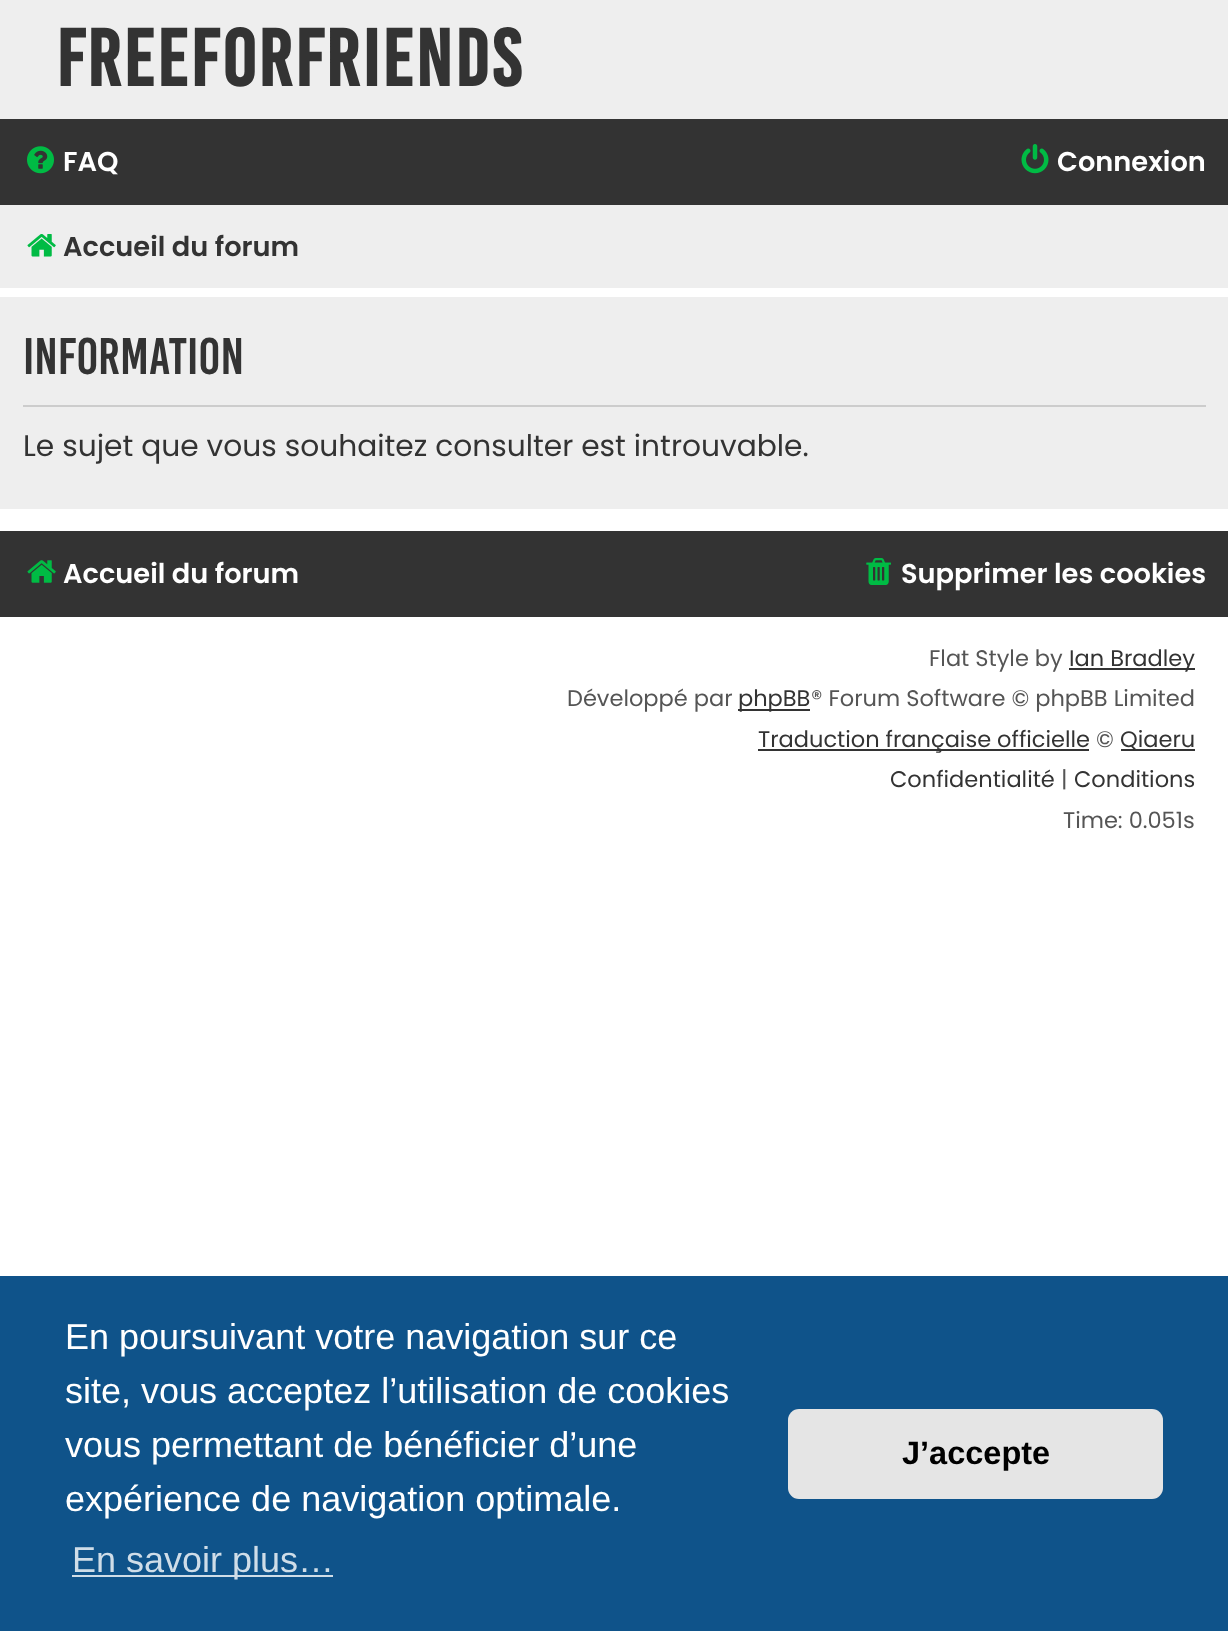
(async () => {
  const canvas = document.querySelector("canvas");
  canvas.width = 1228;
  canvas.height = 1631;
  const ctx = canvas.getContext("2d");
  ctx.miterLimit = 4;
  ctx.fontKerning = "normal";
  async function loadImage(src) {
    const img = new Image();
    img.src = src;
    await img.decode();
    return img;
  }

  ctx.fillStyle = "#ffffff";
  ctx.fillRect(0, 0, 1228, 1631);
  ctx.fillStyle = "#eeeeee";
  ctx.fillRect(0, 0, 1228, 119);
  ctx.fillStyle = "#333333";
  ctx.fillRect(0, 119, 1228, 86);
  ctx.drawImage(await loadImage("img/1.png"), 27, 146, 27, 28);
  ctx.drawImage(await loadImage("img/2.png"), 1021, 144, 28, 30);
  ctx.fillStyle = "#eeeeee";
  ctx.fillRect(0, 205, 1228, 83);
  ctx.drawImage(await loadImage("img/3.png"), 27, 234, 29, 23);
  for (const [x, y, w, h, color] of [
    [0, 297, 1228, 212, "#eeeeee"],
    [23, 405, 1183, 2, "#cccccc"],
    [0, 531, 1228, 86, "#333333"],
  ]) {
    ctx.fillStyle = color;
    ctx.fillRect(x, y, w, h);
  }
  ctx.drawImage(await loadImage("img/4.png"), 27, 560, 29, 23);
  ctx.drawImage(await loadImage("img/5.png"), 866, 558, 25, 27);
  for (const [x, y, w, h, color] of [
    [1069, 668, 126, 2, "#333333"],
    [738, 709, 72, 2, "#333333"],
    [758, 749, 331, 2, "#333333"],
    [1121, 749, 74, 2, "#333333"],
    [0, 1276, 1228, 355, "#0f538a"],
    [72, 1575, 261, 2, "#cfdde8"],
  ]) {
    ctx.fillStyle = color;
    ctx.fillRect(x, y, w, h);
  }
  ctx.fillStyle = "#e5e5e5";
  ctx.beginPath();
  ctx.roundRect(788, 1409, 375, 90, 11);
  ctx.fill();
  ctx.letterSpacing = "2.25px";
  ctx.font = "bold 62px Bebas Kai";
  ctx.fillStyle = "#333333";
  ctx.fillText("FreeForFriends", 56, 86);
  ctx.letterSpacing = "0px";
  ctx.font = "600 27.25px Poppins";
  ctx.fillStyle = "#ffffff";
  ctx.fillText("FAQ", 63, 171);
  ctx.fillText("Connexion", 1057, 171);
  ctx.fillStyle = "#333333";
  ctx.fillText("Accueil du forum", 63, 256);
  ctx.font = "39.5px Bebas Kai";
  ctx.fillText("Information", 23, 374);
  ctx.font = "29.7px Poppins";
  ctx.fillText("Le sujet que vous souhaitez consulter est introuvable.", 23, 456);
  ctx.font = "600 27.25px Poppins";
  ctx.fillStyle = "#ffffff";
  ctx.fillText("Accueil du forum", 63, 583);
  ctx.fillText("Supprimer les cookies", 901, 583);
  ctx.font = "22.5px Poppins";
  ctx.fillStyle = "#555555";
  ctx.fillText("Flat Style by", 929, 666);
  ctx.fillStyle = "#333333";
  ctx.fillText("Ian Bradley", 1069, 666);
  ctx.fillStyle = "#555555";
  ctx.fillText("Développé par", 567, 706);
  ctx.fillStyle = "#333333";
  ctx.fillText("phpBB", 738, 706);
  ctx.fillStyle = "#555555";
  ctx.fillText("® Forum Software © phpBB Limited", 811, 706);
  ctx.fillStyle = "#333333";
  ctx.fillText("Traduction française officielle", 758, 747);
  ctx.fillStyle = "#555555";
  ctx.fillText("©", 1096, 747);
  ctx.fillStyle = "#333333";
  ctx.fillText("Qiaeru", 1120, 747);
  ctx.fillText("Confidentialité", 890, 787);
  ctx.fillStyle = "#555555";
  ctx.fillText("|", 1061, 787);
  ctx.fillStyle = "#333333";
  ctx.fillText("Conditions", 1074, 787);
  ctx.fillStyle = "#555555";
  ctx.fillText("Time: 0.051s", 1063, 828);
  ctx.font = "36px Liberation Sans";
  ctx.fillStyle = "#ffffff";
  for (const [text, x, y] of [
    ["En poursuivant votre navigation sur ce", 65, 1349],
    ["site, vous acceptez l’utilisation de cookies", 65, 1403],
    ["vous permettant de bénéficier d’une", 65, 1457],
    ["expérience de navigation optimale.", 65, 1511],
  ]) {
    ctx.fillText(text, x, y);
  }
  ctx.fillStyle = "#cfdde8";
  ctx.fillText("En savoir plus…", 72, 1572);
  ctx.font = "bold 32.5px Liberation Sans";
  ctx.fillStyle = "#000000";
  ctx.fillText("J’accepte", 902, 1464);
})();
